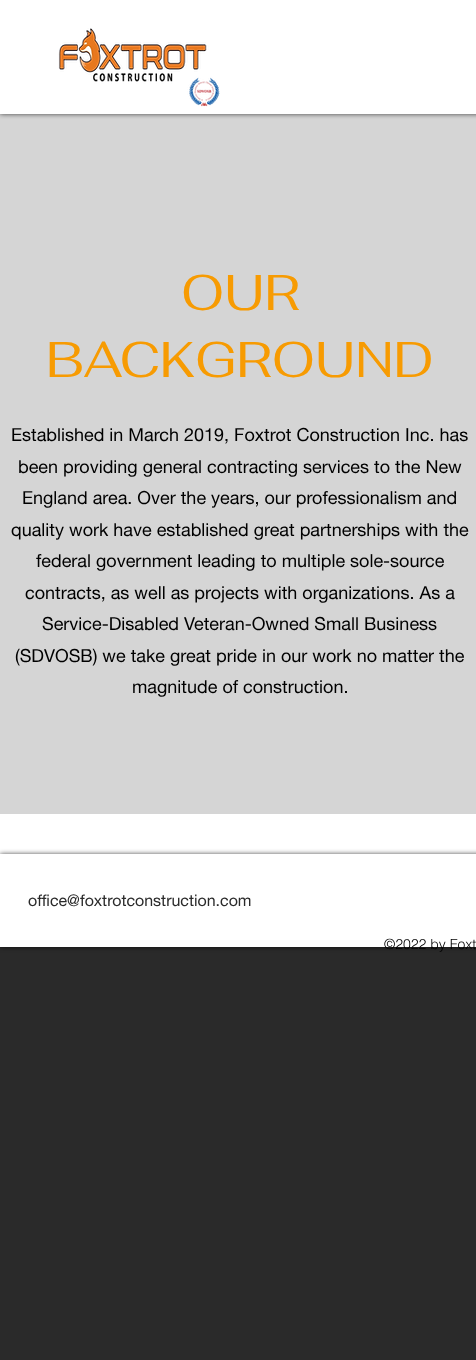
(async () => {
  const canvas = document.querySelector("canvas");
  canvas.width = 476;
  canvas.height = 1360;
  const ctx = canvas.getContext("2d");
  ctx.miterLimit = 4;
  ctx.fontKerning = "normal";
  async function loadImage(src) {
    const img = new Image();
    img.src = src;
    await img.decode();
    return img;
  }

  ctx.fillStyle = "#2a2a2a";
  ctx.fillRect(0, 0, 476, 1360);
  ctx.fillStyle = "#d5d5d5";
  ctx.fillRect(0, 114, 476, 700);
  ctx.fillStyle = "rgba(0, 0, 0, 0.7)";
  ctx.filter = "blur(2.5px)";
  ctx.beginPath();
  ctx.rect(0, 0, 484, 114);
  ctx.fill();
  ctx.filter = "none";
  ctx.fillStyle = "#ffffff";
  ctx.fillRect(0, 0, 476, 114);
  ctx.drawImage(await loadImage("img/1.png"), 58, 28, 162, 79);
  ctx.fillRect(0, 814, 476, 40);
  ctx.fillStyle = "rgba(0, 0, 0, 0.7)";
  ctx.filter = "blur(2.5px)";
  ctx.beginPath();
  ctx.rect(0, 854, 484, 93);
  ctx.fill();
  ctx.filter = "none";
  ctx.fillStyle = "#ffffff";
  ctx.fillRect(0, 854, 476, 93);
  ctx.font = "50px Fahkwang";
  ctx.fillStyle = "#f79b02";
  ctx.fillText("OUR", 181, 310);
  ctx.fillText("BACKGROUND", 46, 377);
  ctx.font = "18px helvetica neue";
  ctx.fillStyle = "#000000";
  for (const [text, x, y] of [
    ["Established in March 2019, Foxtrot Construction Inc. has", 11, 441],
    ["been providing general contracting services to the New", 18, 473],
    ["England area. Over the years, our professionalism and", 22, 504],
    ["quality work have established great partnerships with the", 11, 536],
    ["federal government leading to multiple sole-source", 36, 567],
    ["contracts, as well as projects with organizations. As a", 25, 599],
    ["Service-Disabled Veteran-Owned Small Business", 42, 630],
    ["(SDVOSB) we take great pride in our work no matter the", 15, 662],
    ["magnitude of construction.", 132, 693],
  ]) {
    ctx.fillText(text, x, y);
  }
  ctx.font = "16px helvetica neue";
  ctx.fillStyle = "#2a2a2a";
  ctx.fillText("office@foxtrotconstruction.com", 28, 906);
  ctx.font = "300 14px helvetica";
  ctx.fillStyle = "#000000";
  ctx.fillText("©2022 by Foxt", 384, 949);
})();
